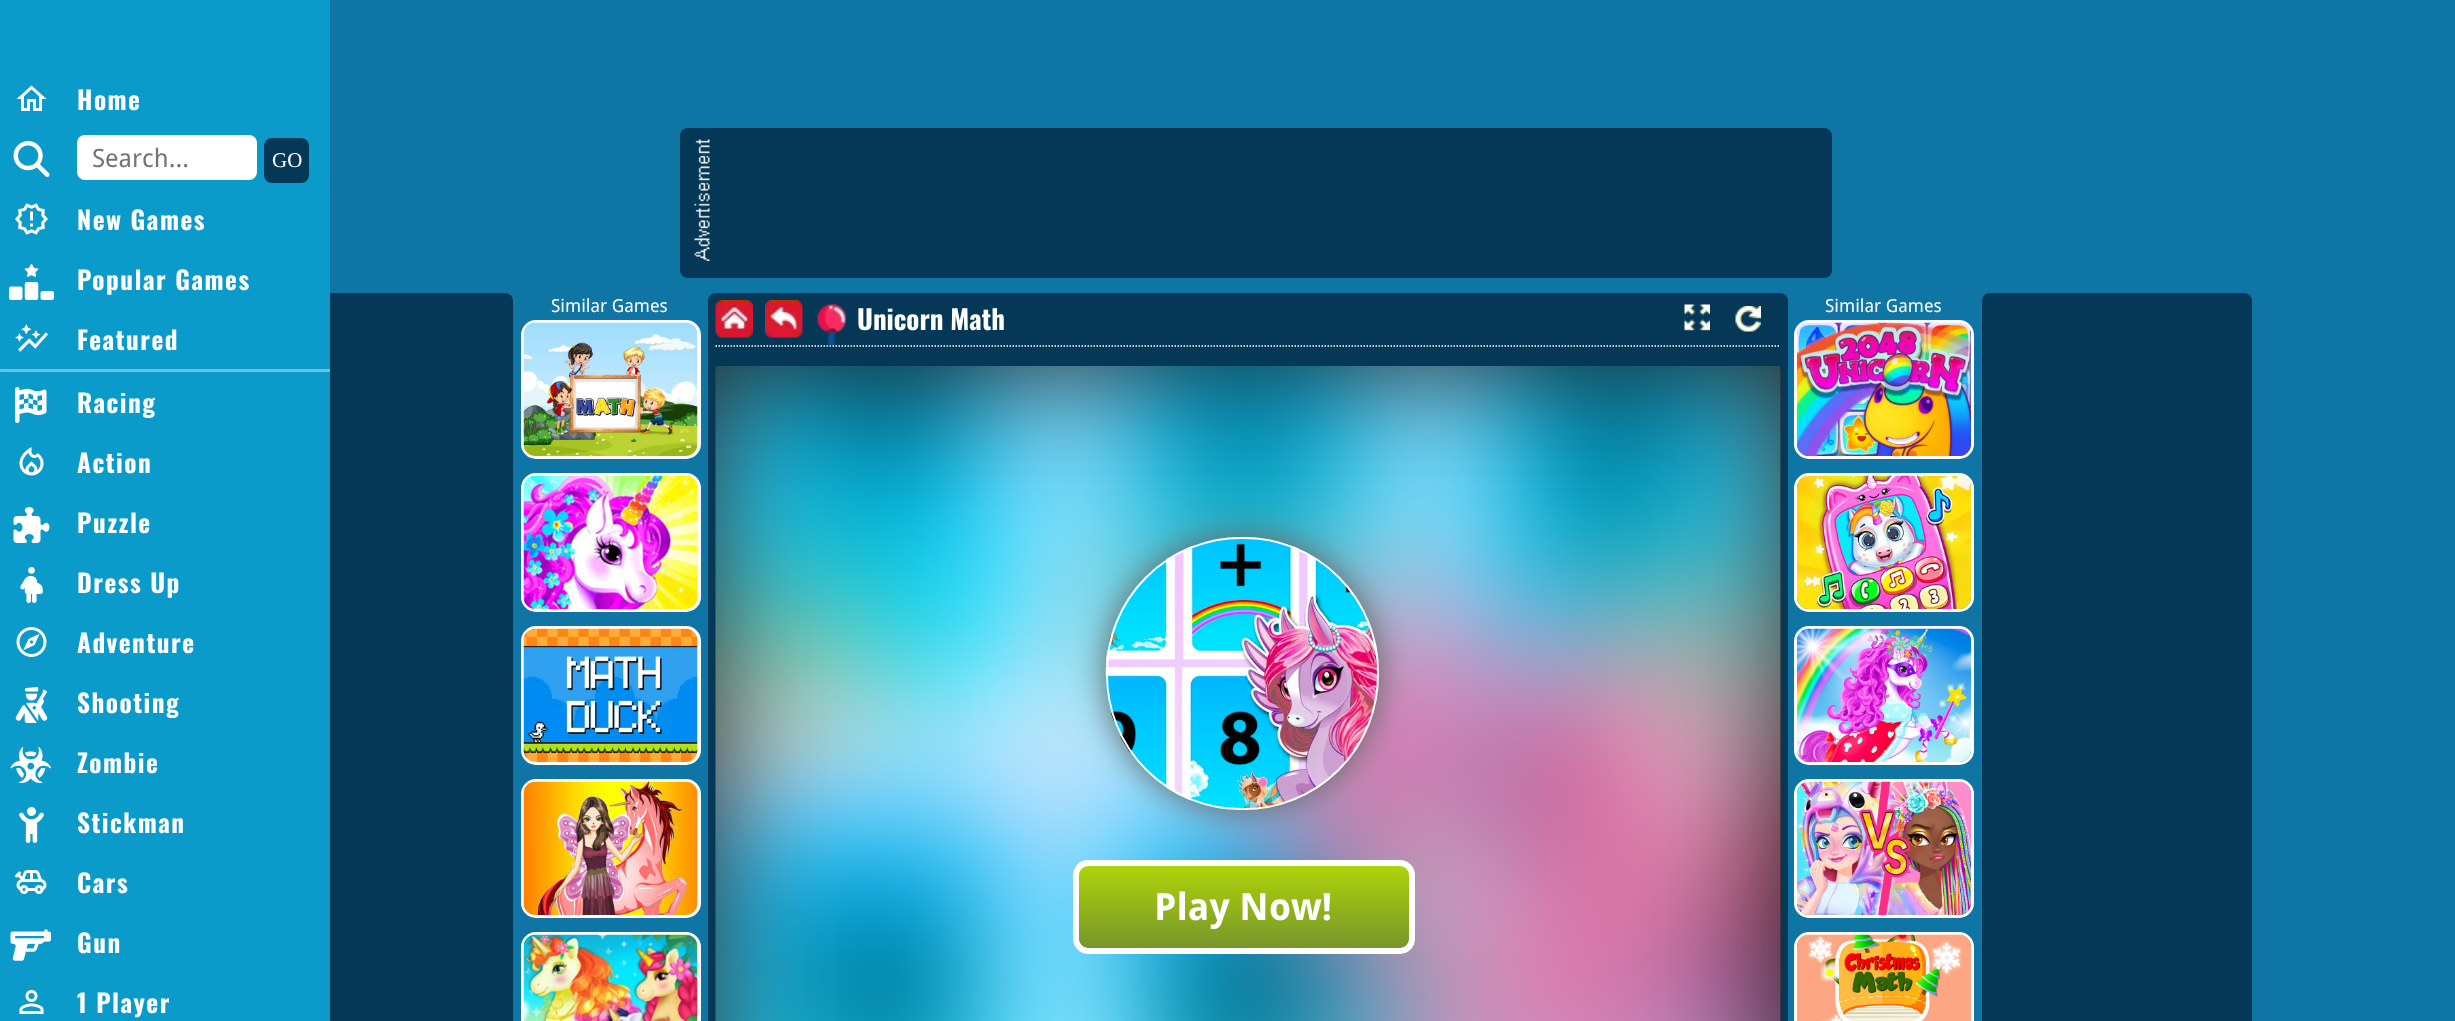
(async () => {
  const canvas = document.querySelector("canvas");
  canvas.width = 2455;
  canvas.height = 1021;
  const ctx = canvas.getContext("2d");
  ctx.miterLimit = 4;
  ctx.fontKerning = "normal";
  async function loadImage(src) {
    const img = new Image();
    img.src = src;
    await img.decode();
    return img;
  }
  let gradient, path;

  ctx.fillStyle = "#0f75a5";
  ctx.fillRect(0, 0, 2455, 1021);
  ctx.fillStyle = "#043856";
  ctx.beginPath();
  ctx.roundRect(243, 293, 270, 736, 8);
  ctx.fill();
  ctx.fillStyle = "#0b9bca";
  ctx.fillRect(0, 0, 330, 1021);
  ctx.drawImage(await loadImage("img/1.png"), 16, 85, 31, 26);
  ctx.drawImage(await loadImage("img/2.png"), 13, 141, 37, 36);
  ctx.fillStyle = "#ffffff";
  ctx.beginPath();
  ctx.roundRect(77, 135, 180, 45, 8);
  ctx.fill();
  ctx.fillStyle = "#043856";
  ctx.beginPath();
  ctx.roundRect(264, 138, 45, 45, 8);
  ctx.fill();
  ctx.drawImage(await loadImage("img/3.png"), 15, 203, 33, 32);
  ctx.drawImage(await loadImage("img/4.png"), 9, 264, 45, 36);
  ctx.drawImage(await loadImage("img/5.png"), 15, 324, 33, 28);
  ctx.fillStyle = "#6dc3df";
  path = new Path2D("M16 369H330C330 373 330 372 327 372H5C1 372-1 373 0 369Z");
  ctx.fill(path);
  ctx.drawImage(await loadImage("img/6.png"), 15, 387, 32, 36);
  ctx.drawImage(await loadImage("img/7.png"), 19, 447, 25, 29);
  ctx.drawImage(await loadImage("img/8.png"), 13, 507, 37, 36);
  ctx.drawImage(await loadImage("img/9.png"), 20, 567, 23, 36);
  ctx.drawImage(await loadImage("img/10.png"), 16, 627, 31, 30);
  ctx.drawImage(await loadImage("img/11.png"), 15, 687, 33, 36);
  ctx.drawImage(await loadImage("img/12.png"), 10, 747, 41, 36);
  ctx.drawImage(await loadImage("img/13.png"), 19, 807, 25, 36);
  ctx.drawImage(await loadImage("img/14.png"), 15, 870, 32, 24);
  ctx.drawImage(await loadImage("img/15.png"), 10, 929, 41, 32);
  ctx.drawImage(await loadImage("img/16.png"), 19, 990, 25, 24);
  ctx.fillStyle = "#043856";
  ctx.beginPath();
  ctx.roundRect(680, 128, 1152, 150, 8);
  ctx.fill();
  ctx.drawImage(await loadImage("img/17.png"), 694, 139, 16, 122);
  ctx.fillStyle = "#ffffff";
  ctx.beginPath();
  ctx.roundRect(522.5, 321.5, 177, 136, 13.5);
  ctx.fill();
  ctx.strokeStyle = "#ffffff";
  ctx.lineWidth = 3;
  ctx.stroke();
  ctx.drawImage(await loadImage("img/18.png"), 523, 322, 175, 134);
  ctx.beginPath();
  ctx.roundRect(522.5, 474.5, 177, 136, 13.5);
  ctx.fill();
  ctx.stroke();
  ctx.drawImage(await loadImage("img/19.png"), 523, 475, 175, 134);
  ctx.beginPath();
  ctx.roundRect(522.5, 627.5, 177, 136, 13.5);
  ctx.fill();
  ctx.stroke();
  ctx.drawImage(await loadImage("img/20.png"), 523, 628, 175, 134);
  ctx.beginPath();
  ctx.roundRect(522.5, 780.5, 177, 136, 13.5);
  ctx.fill();
  ctx.stroke();
  ctx.drawImage(await loadImage("img/21.png"), 523, 781, 175, 134);
  ctx.beginPath();
  ctx.roundRect(522.5, 933.5, 177, 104, 13.5);
  ctx.fill();
  ctx.stroke();
  ctx.drawImage(await loadImage("img/22.png"), 523, 934, 175, 87);
  ctx.beginPath();
  ctx.roundRect(1795.5, 321.5, 177, 136, 13.5);
  ctx.stroke();
  ctx.drawImage(await loadImage("img/23.png"), 1797, 322, 174, 134);
  ctx.beginPath();
  ctx.roundRect(1795.5, 474.5, 177, 136, 13.5);
  ctx.stroke();
  ctx.drawImage(await loadImage("img/24.png"), 1797, 475, 174, 134);
  ctx.beginPath();
  ctx.roundRect(1795.5, 627.5, 177, 136, 13.5);
  ctx.stroke();
  ctx.drawImage(await loadImage("img/25.png"), 1797, 628, 174, 134);
  ctx.beginPath();
  ctx.roundRect(1795.5, 780.5, 177, 136, 13.5);
  ctx.stroke();
  ctx.drawImage(await loadImage("img/26.png"), 1797, 781, 174, 134);
  ctx.beginPath();
  ctx.roundRect(1795.5, 933.5, 177, 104, 13.5);
  ctx.stroke();
  ctx.drawImage(await loadImage("img/27.png"), 1797, 934, 174, 87);
  ctx.fillStyle = "#043856";
  ctx.beginPath();
  ctx.roundRect(1982, 293, 270, 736, 8);
  ctx.fill();
  ctx.beginPath();
  ctx.roundRect(708, 293, 1080, 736, 8);
  ctx.fill();
  path = new Path2D("M715.5 346H1780.5");
  ctx.lineWidth = 1.5;
  ctx.setLineDash([1.5, 1.5]);
  ctx.stroke(path);
  ctx.drawImage(await loadImage("img/28.png"), 715, 300, 38, 38);
  ctx.drawImage(await loadImage("img/29.png"), 765, 300, 38, 38);
  ctx.drawImage(await loadImage("img/30.png"), 817, 304, 29, 41);
  ctx.drawImage(await loadImage("img/31.png"), 1684, 304, 26, 27);
  ctx.drawImage(await loadImage("img/32.png"), 1735, 306, 26, 26);
  ctx.fillStyle = "#222222";
  ctx.fillRect(716, 366, 1065, 655);
  ctx.drawImage(await loadImage("img/33.png"), 715, 366, 1066, 655);
  ctx.fillStyle = "#666666";
  ctx.filter = "blur(16.5px)";
  ctx.beginPath();
  ctx.roundRect(1106, 537, 273, 273, 135);
  ctx.fill();
  ctx.filter = "none";
  ctx.drawImage(await loadImage("img/34.png"), 1105, 537, 274, 273);
  ctx.beginPath();
  ctx.roundRect(1107, 538, 271, 271, 134);
  ctx.lineWidth = 2;
  ctx.setLineDash([]);
  ctx.stroke();
  ctx.save();
  ctx.beginPath();
  ctx.roundRect(1073, 860, 342, 94, 15);
  ctx.clip();
  gradient = ctx.createLinearGradient(1244, 866, 1244, 948);
  gradient.addColorStop(0, "#aed409");
  gradient.addColorStop(1, "#77952b");
  ctx.fillStyle = gradient;
  ctx.fillRect(1073, 866, 342, 82);
  ctx.restore();
  ctx.beginPath();
  ctx.roundRect(1076, 863, 336, 88, 12);
  ctx.lineWidth = 6;
  ctx.stroke();
  ctx.letterSpacing = "1.5px";
  ctx.font = "bold 25.25px Oswald";
  ctx.fillStyle = "#ffffff";
  ctx.fillText("Home", 77, 110);
  ctx.letterSpacing = "0px";
  ctx.font = "25.25px Droid Sans";
  ctx.fillStyle = "#757575";
  ctx.fillText("Search...", 92, 167);
  ctx.font = "21px Liberation Serif";
  ctx.fillStyle = "#ffffff";
  ctx.fillText("GO", 272, 167);
  ctx.letterSpacing = "1.5px";
  ctx.font = "bold 25.25px Oswald";
  for (const [text, x, y] of [
    ["New Games", 77, 230],
    ["Popular Games", 77, 290],
    ["Featured", 77, 350],
    ["Racing", 77, 413],
    ["Action", 77, 473],
    ["Puzzle", 77, 533],
    ["Dress Up", 77, 593],
    ["Adventure", 77, 653],
    ["Shooting", 77, 713],
    ["Zombie", 77, 773],
    ["Stickman", 77, 833],
    ["Cars", 77, 893],
    ["Gun", 77, 953],
    ["1 Player", 77, 1013],
  ]) {
    ctx.fillText(text, x, y);
  }
  ctx.letterSpacing = "0px";
  ctx.font = "18px Droid Sans";
  ctx.fillText("Similar Games", 551, 312);
  ctx.fillText("Similar Games", 1825, 312);
  ctx.font = "bold 27px Oswald";
  ctx.fillText("Unicorn Math", 857, 330);
  ctx.font = "bold 37.5px Droid Sans";
  ctx.fillText("Play Now!", 1154, 920);
})();
